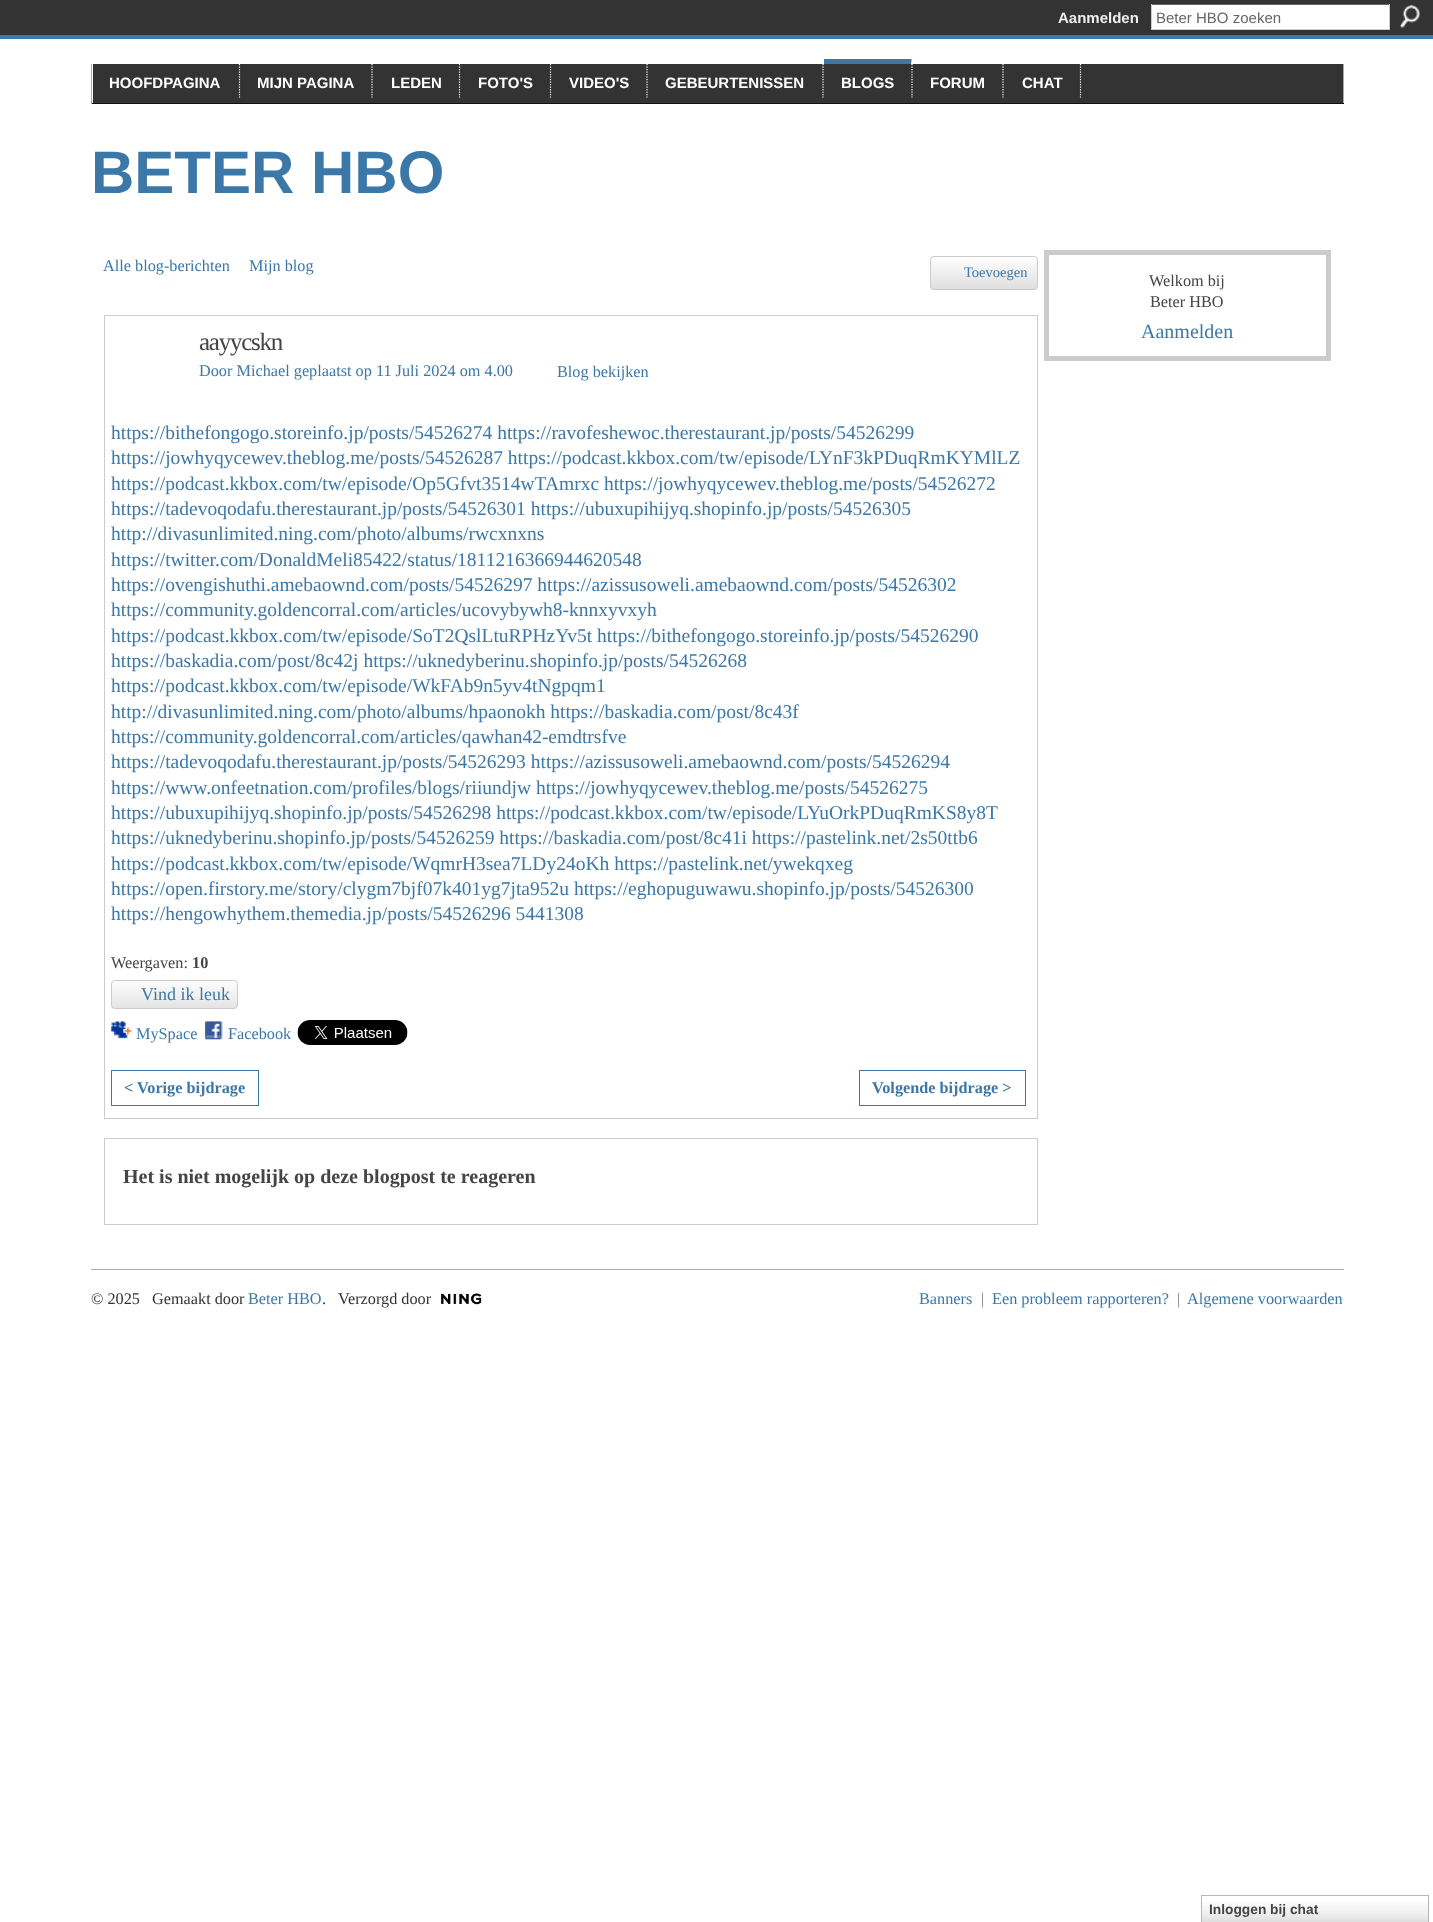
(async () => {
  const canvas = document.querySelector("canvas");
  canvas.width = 1433;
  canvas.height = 1922;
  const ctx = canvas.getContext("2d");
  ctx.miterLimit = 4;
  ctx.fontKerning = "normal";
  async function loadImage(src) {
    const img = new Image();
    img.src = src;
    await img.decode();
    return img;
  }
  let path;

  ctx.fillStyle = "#ffffff";
  ctx.fillRect(0, 0, 1433, 1922);
  for (const [x, y, w, h, color] of [
    [0, 0, 1433, 35, "#333333"],
    [1152, 5, 237, 24, "#ffffff"],
    [1151, 4, 239, 1, "#666666"],
    [1389, 4, 1, 26, "#cccccc"],
    [1151, 29, 239, 1, "#cccccc"],
    [1151, 4, 1, 26, "#cccccc"],
  ]) {
    ctx.fillStyle = color;
    ctx.fillRect(x, y, w, h);
  }
  ctx.drawImage(await loadImage("img/1.png"), 1400, 5, 20, 23);
  for (const [x, y, w, h, color] of [
    [0, 35, 1433, 4, "#3c78a7"],
    [93, 64, 1250, 39, "#333333"],
    [1343, 64, 1, 40, "#aaaaaa"],
    [91, 103, 1253, 1, "#111111"],
    [91, 64, 1, 40, "#aaaaaa"],
  ]) {
    ctx.fillStyle = color;
    ctx.fillRect(x, y, w, h);
  }
  path = new Path2D("M239.5 59V97.5");
  ctx.strokeStyle = "#ffffff";
  ctx.lineWidth = 1.2;
  ctx.setLineDash([1.25, 1.25]);
  ctx.stroke(path);
  path = new Path2D("M372 59V97.5");
  ctx.stroke(path);
  path = new Path2D("M459.5 59V97.5");
  ctx.stroke(path);
  path = new Path2D("M550.5 59V97.5");
  ctx.stroke(path);
  path = new Path2D("M647 59V97.5");
  ctx.stroke(path);
  path = new Path2D("M823 59V97.5");
  ctx.stroke(path);
  ctx.fillStyle = "#3c78a7";
  path = new Path2D("M824 59H912L911 64H824Z");
  ctx.fill(path);
  path = new Path2D("M912 59V97.5");
  ctx.stroke(path);
  path = new Path2D("M1003 59V97.5");
  ctx.stroke(path);
  path = new Path2D("M1080.5 59V97.5");
  ctx.stroke(path);
  ctx.drawImage(await loadImage("img/2.png"), 930, 259, 108, 31);
  ctx.beginPath();
  ctx.roundRect(930.5, 256.5, 107, 33, 3.5);
  ctx.strokeStyle = "#cbcbcb";
  ctx.lineWidth = 1;
  ctx.setLineDash([]);
  ctx.stroke();
  ctx.strokeStyle = "#cccccc";
  ctx.strokeRect(104.5, 315.5, 933, 803);
  ctx.drawImage(await loadImage("img/3.png"), 111, 982, 127, 27);
  ctx.beginPath();
  ctx.roundRect(111.5, 980.5, 126, 28, 3.5);
  ctx.strokeStyle = "#cbcbcb";
  ctx.stroke();
  ctx.drawImage(await loadImage("img/4.png"), 111, 1021, 21, 18);
  ctx.drawImage(await loadImage("img/5.png"), 204, 1021, 19, 19);
  ctx.drawImage(await loadImage("img/6.png"), 297, 1020, 111, 25);
  ctx.strokeStyle = "#3c78a7";
  ctx.strokeRect(111.5, 1070.5, 147, 35);
  ctx.strokeRect(859.5, 1070.5, 166, 35);
  ctx.strokeStyle = "#cccccc";
  ctx.strokeRect(104.5, 1138.5, 933, 86);
  ctx.strokeRect(1044.5, 250.5, 286, 110);
  ctx.strokeStyle = "#cbcbcb";
  ctx.lineWidth = 4;
  ctx.strokeRect(1047, 253, 281, 105);
  ctx.fillStyle = "#aaaaaa";
  ctx.fillRect(91, 1269, 1253, 1);
  ctx.drawImage(await loadImage("img/7.png"), 441, 1293, 41, 12);
  ctx.drawImage(await loadImage("img/8.png"), 1202, 1902, 226, 20);
  ctx.strokeStyle = "#b7b7b7";
  ctx.lineWidth = 1;
  ctx.strokeRect(1201.5, 1895.5, 227, 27);
  ctx.font = "bold 15px Liberation Sans";
  ctx.fillStyle = "#eeeeee";
  ctx.fillText("Aanmelden", 1058, 23);
  ctx.font = "15px Liberation Sans";
  ctx.fillStyle = "#666666";
  ctx.fillText("Beter HBO zoeken", 1156, 23);
  ctx.font = "bold 15px Liberation Sans";
  ctx.fillStyle = "#ffffff";
  for (const [text, x, y] of [
    ["HOOFDPAGINA", 109, 88],
    ["MIJN PAGINA", 257, 88],
    ["LEDEN", 391, 88],
    ["FOTO'S", 478, 88],
    ["VIDEO'S", 569, 88],
    ["GEBEURTENISSEN", 665, 88],
    ["BLOGS", 841, 88],
    ["FORUM", 930, 88],
    ["CHAT", 1022, 88],
  ]) {
    ctx.fillText(text, x, y);
  }
  ctx.font = "bold 60px Liberation Sans";
  ctx.fillStyle = "#3c78a7";
  ctx.fillText("BETER HBO", 91, 193);
  ctx.font = "16.25px Liberation Serif";
  ctx.fillText("Alle blog-berichten", 103, 271);
  ctx.fillText("Mijn blog", 249, 271);
  ctx.font = "14.5px Liberation Serif";
  ctx.fillText("Toevoegen", 964, 277);
  ctx.letterSpacing = "-1.25px";
  ctx.font = "25px Liberation Serif";
  ctx.fillStyle = "#454545";
  ctx.fillText("aayycskn", 199, 350);
  ctx.letterSpacing = "0px";
  ctx.font = "16.25px Liberation Serif";
  ctx.fillStyle = "#3c78a7";
  ctx.fillText("Door Michael geplaatst op 11 Juli 2024 om 4.00", 199, 376);
  ctx.fillText("Blog bekijken", 557, 377);
  ctx.font = "19.5px Liberation Serif";
  for (const [text, x, y] of [
    ["https://bithefongogo.storeinfo.jp/posts/54526274 https://ravofeshewoc.therestaurant.jp/posts/54526299", 111, 439],
    ["https://jowhyqycewev.theblog.me/posts/54526287 https://podcast.kkbox.com/tw/episode/LYnF3kPDuqRmKYMlLZ", 111, 464],
    ["https://podcast.kkbox.com/tw/episode/Op5Gfvt3514wTAmrxc https://jowhyqycewev.theblog.me/posts/54526272", 111, 490],
    ["https://tadevoqodafu.therestaurant.jp/posts/54526301 https://ubuxupihijyq.shopinfo.jp/posts/54526305", 111, 515],
    ["http://divasunlimited.ning.com/photo/albums/rwcxnxns", 111, 540],
    ["https://twitter.com/DonaldMeli85422/status/1811216366944620548", 111, 566],
    ["https://ovengishuthi.amebaownd.com/posts/54526297 https://azissusoweli.amebaownd.com/posts/54526302", 111, 591],
    ["https://community.goldencorral.com/articles/ucovybywh8-knnxyvxyh", 111, 616],
    ["https://podcast.kkbox.com/tw/episode/SoT2QslLtuRPHzYv5t https://bithefongogo.storeinfo.jp/posts/54526290", 111, 642],
    ["https://baskadia.com/post/8c42j https://uknedyberinu.shopinfo.jp/posts/54526268", 111, 667],
    ["https://podcast.kkbox.com/tw/episode/WkFAb9n5yv4tNgpqm1", 111, 692],
    ["http://divasunlimited.ning.com/photo/albums/hpaonokh https://baskadia.com/post/8c43f", 111, 718],
    ["https://community.goldencorral.com/articles/qawhan42-emdtrsfve", 111, 743],
    ["https://tadevoqodafu.therestaurant.jp/posts/54526293 https://azissusoweli.amebaownd.com/posts/54526294", 111, 768],
    ["https://www.onfeetnation.com/profiles/blogs/riiundjw https://jowhyqycewev.theblog.me/posts/54526275", 111, 794],
    ["https://ubuxupihijyq.shopinfo.jp/posts/54526298 https://podcast.kkbox.com/tw/episode/LYuOrkPDuqRmKS8y8T", 111, 819],
    ["https://uknedyberinu.shopinfo.jp/posts/54526259 https://baskadia.com/post/8c41i https://pastelink.net/2s50ttb6", 111, 844],
    ["https://podcast.kkbox.com/tw/episode/WqmrH3sea7LDy24oKh https://pastelink.net/ywekqxeg", 111, 870],
    ["https://open.firstory.me/story/clygm7bjf07k401yg7jta952u https://eghopuguwawu.shopinfo.jp/posts/54526300", 111, 895],
    ["https://hengowhythem.themedia.jp/posts/54526296 5441308", 111, 920],
  ]) {
    ctx.fillText(text, x, y);
  }
  ctx.font = "16.25px Liberation Serif";
  ctx.fillStyle = "#454545";
  ctx.fillText("Weergaven:", 111, 968);
  ctx.font = "bold 16.25px Liberation Serif";
  ctx.fillText("10", 192, 968);
  ctx.font = "18px Liberation Serif";
  ctx.fillStyle = "#3c78a7";
  ctx.fillText("Vind ik leuk", 141, 1000);
  ctx.font = "16.25px Liberation Serif";
  ctx.fillText("MySpace", 136, 1039);
  ctx.fillText("Facebook", 228, 1039);
  ctx.font = "bold 16.25px Liberation Serif";
  ctx.fillText("< Vorige bijdrage", 124, 1093);
  ctx.fillText("Volgende bijdrage >", 872, 1093);
  ctx.font = "bold 20px Liberation Serif";
  ctx.fillStyle = "#454545";
  ctx.fillText("Het is niet mogelijk op deze blogpost te reageren", 123, 1183);
  ctx.font = "16.25px Liberation Serif";
  ctx.fillText("Welkom bij", 1149, 286);
  ctx.fillText("Beter HBO", 1150, 307);
  ctx.font = "20px Liberation Serif";
  ctx.fillStyle = "#3c78a7";
  ctx.fillText("Aanmelden", 1141, 338);
  ctx.font = "16.25px Liberation Serif";
  ctx.fillStyle = "#333333";
  ctx.fillText("© 2025", 91, 1304);
  ctx.fillText("Gemaakt door", 152, 1304);
  ctx.fillStyle = "#3c78a7";
  ctx.fillText("Beter HBO", 248, 1304);
  ctx.fillStyle = "#333333";
  ctx.fillText(".", 322, 1304);
  ctx.fillText("Verzorgd door", 338, 1304);
  ctx.fillStyle = "#3c78a7";
  ctx.fillText("Banners", 919, 1304);
  ctx.fillStyle = "#7f7f7f";
  ctx.fillText("|", 981, 1304);
  ctx.fillStyle = "#3c78a7";
  ctx.fillText("Een probleem rapporteren?", 992, 1304);
  ctx.fillStyle = "#7f7f7f";
  ctx.fillText("|", 1177, 1304);
  ctx.fillStyle = "#3c78a7";
  ctx.fillText("Algemene voorwaarden", 1187, 1304);
  ctx.font = "bold 13.75px Liberation Sans";
  ctx.fillStyle = "#454545";
  ctx.fillText("Inloggen bij chat", 1209, 1914);
})();
